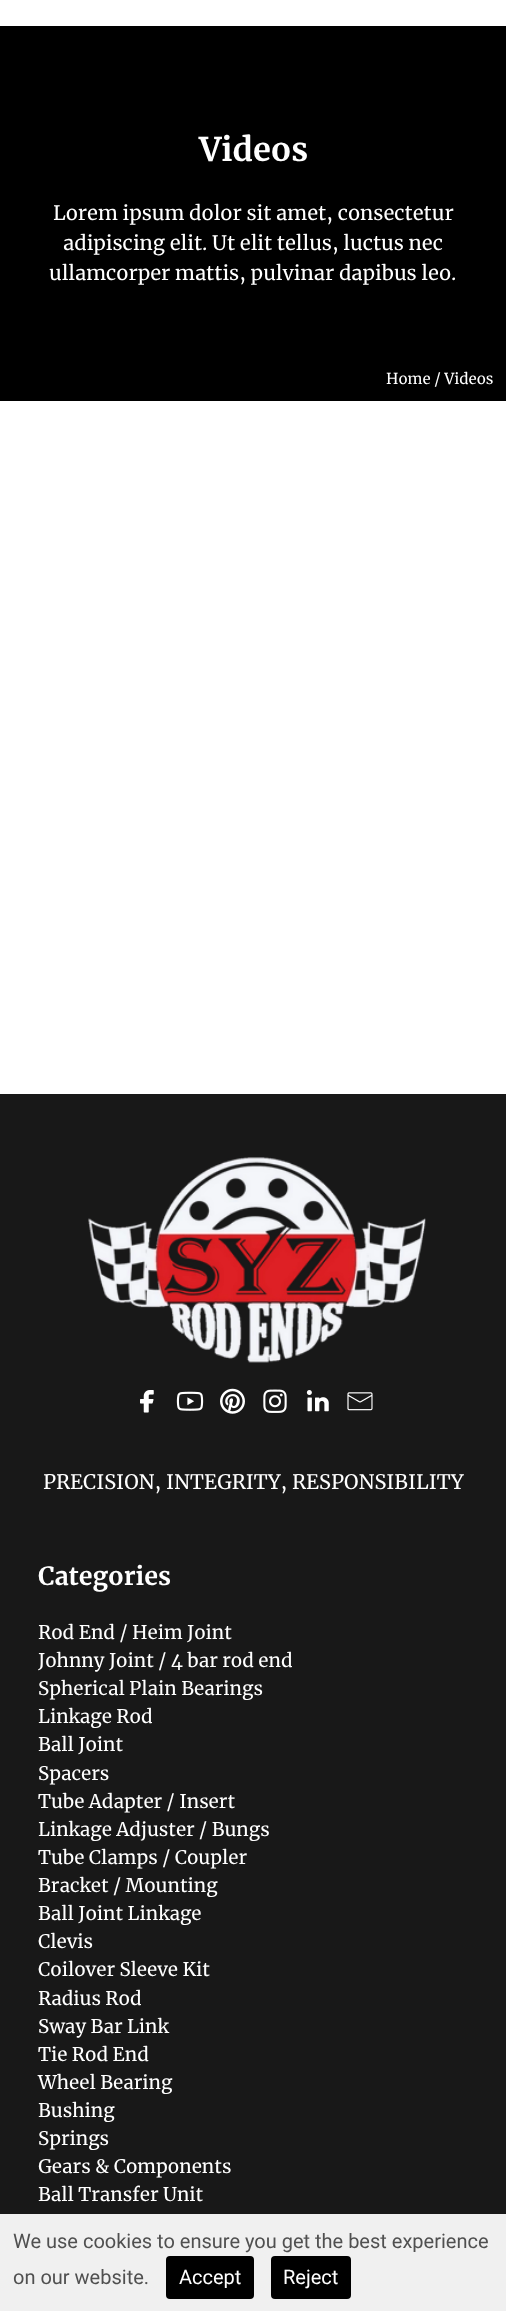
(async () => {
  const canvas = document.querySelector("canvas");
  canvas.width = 506;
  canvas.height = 2311;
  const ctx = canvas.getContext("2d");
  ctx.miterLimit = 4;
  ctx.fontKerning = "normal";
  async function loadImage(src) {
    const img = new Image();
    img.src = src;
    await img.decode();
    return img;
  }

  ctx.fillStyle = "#ffffff";
  ctx.fillRect(0, 0, 506, 2311);
  ctx.fillStyle = "#000000";
  ctx.fillRect(0, 26, 506, 375);
  ctx.fillStyle = "#181818";
  ctx.fillRect(0, 1094, 506, 1120);
  ctx.drawImage(await loadImage("img/1.png"), 88, 1157, 338, 206);
  ctx.drawImage(await loadImage("img/2.png"), 140, 1390, 14, 23);
  ctx.drawImage(await loadImage("img/3.png"), 176, 1391, 28, 20);
  ctx.drawImage(await loadImage("img/4.png"), 220, 1388, 25, 26);
  ctx.drawImage(await loadImage("img/5.png"), 263, 1389, 24, 24);
  ctx.drawImage(await loadImage("img/6.png"), 306, 1390, 23, 22);
  ctx.drawImage(await loadImage("img/7.png"), 347, 1392, 26, 19);
  ctx.fillStyle = "#f0f0f0";
  ctx.fillRect(0, 2214, 506, 97);
  ctx.fillStyle = "#000000";
  ctx.beginPath();
  ctx.roundRect(166, 2256, 88, 43, 4);
  ctx.fill();
  ctx.beginPath();
  ctx.roundRect(271, 2256, 80, 43, 4);
  ctx.fill();
  ctx.font = "bold 32.5px Merriweather";
  ctx.fillStyle = "#ffffff";
  ctx.fillText("Videos", 199, 161);
  ctx.font = "20px Merriweather";
  for (const [text, x, y] of [
    ["Lorem ipsum dolor sit amet, consectetur", 53, 220],
    ["adipiscing elit. Ut elit tellus, luctus nec", 63, 250],
    ["ullamcorper mattis, pulvinar dapibus leo.", 49, 280],
  ]) {
    ctx.fillText(text, x, y);
  }
  ctx.font = "15px Merriweather";
  ctx.fillText("Home / Videos", 386, 384);
  ctx.font = "20px Merriweather";
  ctx.fillText("PRECISION, INTEGRITY, RESPONSIBILITY", 43, 1489);
  ctx.font = "bold 25px Merriweather";
  ctx.fillText("Categories", 38, 1585);
  ctx.font = "18.75px Merriweather";
  for (const [text, x, y] of [
    ["Rod End / Heim Joint", 38, 1639],
    ["Johnny Joint / 4 bar rod end", 38, 1667],
    ["Spherical Plain Bearings", 38, 1695],
    ["Linkage Rod", 38, 1723],
    ["Ball Joint", 38, 1751],
    ["Spacers", 38, 1780],
    ["Tube Adapter / Insert", 38, 1808],
    ["Linkage Adjuster / Bungs", 38, 1836],
    ["Tube Clamps / Coupler", 38, 1864],
    ["Bracket / Mounting", 38, 1892],
    ["Ball Joint Linkage", 38, 1920],
    ["Clevis", 38, 1948],
    ["Coilover Sleeve Kit", 38, 1976],
    ["Radius Rod", 38, 2005],
    ["Sway Bar Link", 38, 2033],
    ["Tie Rod End", 38, 2061],
    ["Wheel Bearing", 38, 2089],
    ["Bushing", 38, 2117],
    ["Springs", 38, 2145],
    ["Gears & Components", 38, 2173],
    ["Ball Transfer Unit", 38, 2201],
  ]) {
    ctx.fillText(text, x, y);
  }
  ctx.font = "20px Roboto";
  ctx.fillStyle = "#505050";
  ctx.fillText("We use cookies to ensure you get the best experience", 13, 2248);
  ctx.fillText("on our website.", 13, 2284);
  ctx.fillStyle = "#ffffff";
  ctx.fillText("Accept", 179, 2284);
  ctx.fillText("Reject", 283, 2284);
})();
